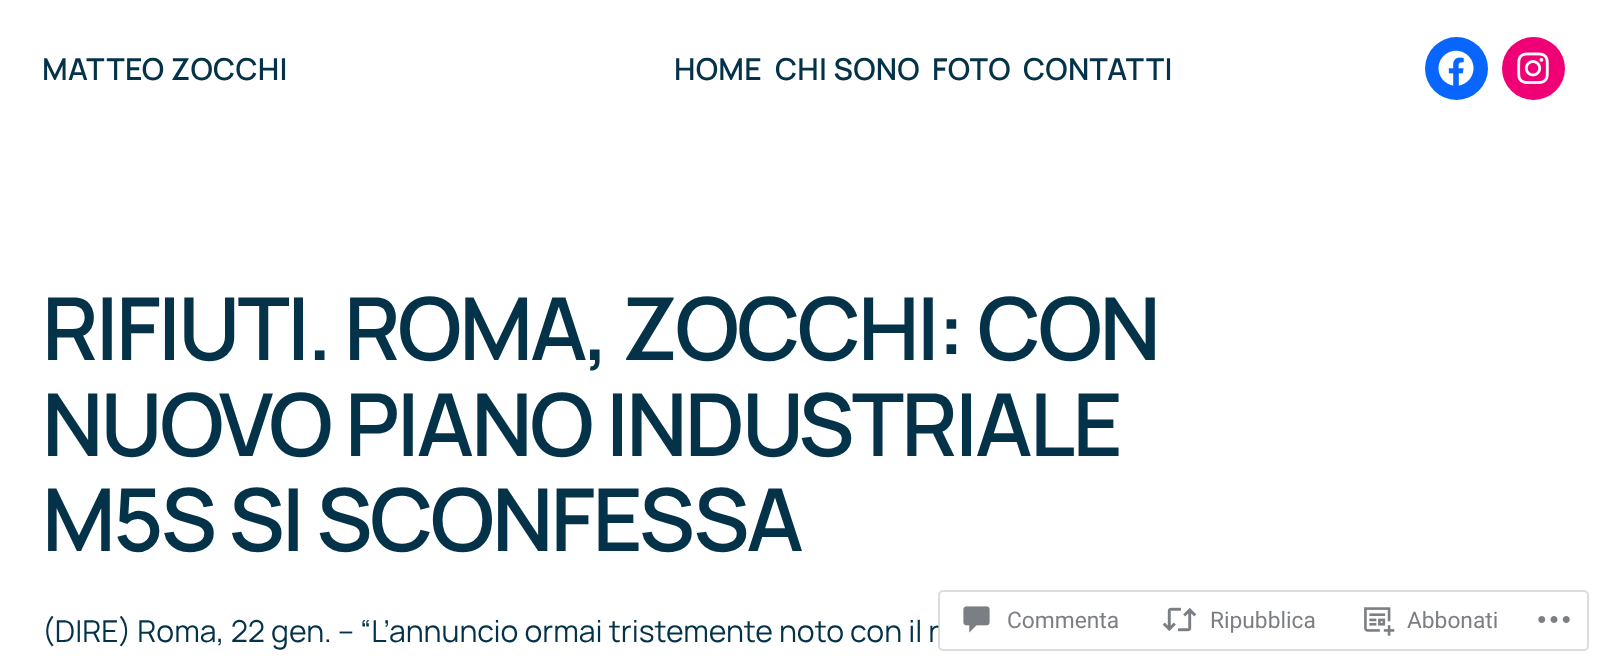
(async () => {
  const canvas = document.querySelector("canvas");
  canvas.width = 1606;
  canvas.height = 668;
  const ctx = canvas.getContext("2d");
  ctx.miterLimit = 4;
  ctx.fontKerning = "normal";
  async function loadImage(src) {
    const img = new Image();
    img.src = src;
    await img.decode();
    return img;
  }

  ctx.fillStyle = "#ffffff";
  ctx.fillRect(0, 0, 1606, 668);
  ctx.fillStyle = "#0866ff";
  ctx.beginPath();
  ctx.arc(1456.5, 68.5, 31.5, 0, Math.PI * 2);
  ctx.fill();
  ctx.drawImage(await loadImage("img/1.png"), 1438, 50, 36, 36);
  ctx.fillStyle = "#f00075";
  ctx.beginPath();
  ctx.arc(1533.5, 68.5, 31.5, 0, Math.PI * 2);
  ctx.fill();
  ctx.drawImage(await loadImage("img/2.png"), 1517, 52, 32, 32);
  ctx.beginPath();
  ctx.roundRect(939, 591, 649, 59, 4);
  ctx.strokeStyle = "rgba(220, 220, 222, 0.98)";
  ctx.lineWidth = 2;
  ctx.stroke();
  ctx.drawImage(await loadImage("img/3.png"), 963, 606, 27, 27);
  ctx.drawImage(await loadImage("img/4.png"), 1162, 607, 35, 25);
  ctx.drawImage(await loadImage("img/5.png"), 1364, 607, 31, 29);
  ctx.drawImage(await loadImage("img/6.png"), 1538, 616, 32, 7);
  ctx.letterSpacing = "0.25px";
  ctx.font = "600 30.2px Manrope";
  ctx.fillStyle = "#043249";
  for (const [text, x, y] of [
    ["MATTEO ZOCCHI", 42, 80],
    ["HOME", 674, 80],
    ["CHI SONO", 775, 80],
    ["FOTO", 932, 80],
    ["CONTATTI", 1023, 80],
  ]) {
    ctx.fillText(text, x, y);
  }
  ctx.letterSpacing = "-2.8px";
  ctx.font = "600 86.9px Manrope";
  for (const [text, x, y] of [
    ["RIFIUTI. ROMA, ZOCCHI: CON", 42, 360],
    ["NUOVO PIANO INDUSTRIALE", 42, 456],
    ["M5S SI SCONFESSA", 42, 551],
  ]) {
    ctx.fillText(text, x, y);
  }
  ctx.letterSpacing = "0px";
  ctx.font = "30.2px Manrope";
  ctx.fillText("(DIRE) Roma, 22 gen. – “L’annuncio ormai tristemente noto con il r", 42, 642);
  ctx.font = "22.75px Roboto";
  ctx.fillStyle = "#7b7f84";
  for (const [text, x, y] of [
    ["Commenta", 1007, 628],
    ["Ripubblica", 1210, 628],
    ["Abbonati", 1407, 628],
  ]) {
    ctx.fillText(text, x, y);
  }
})();
